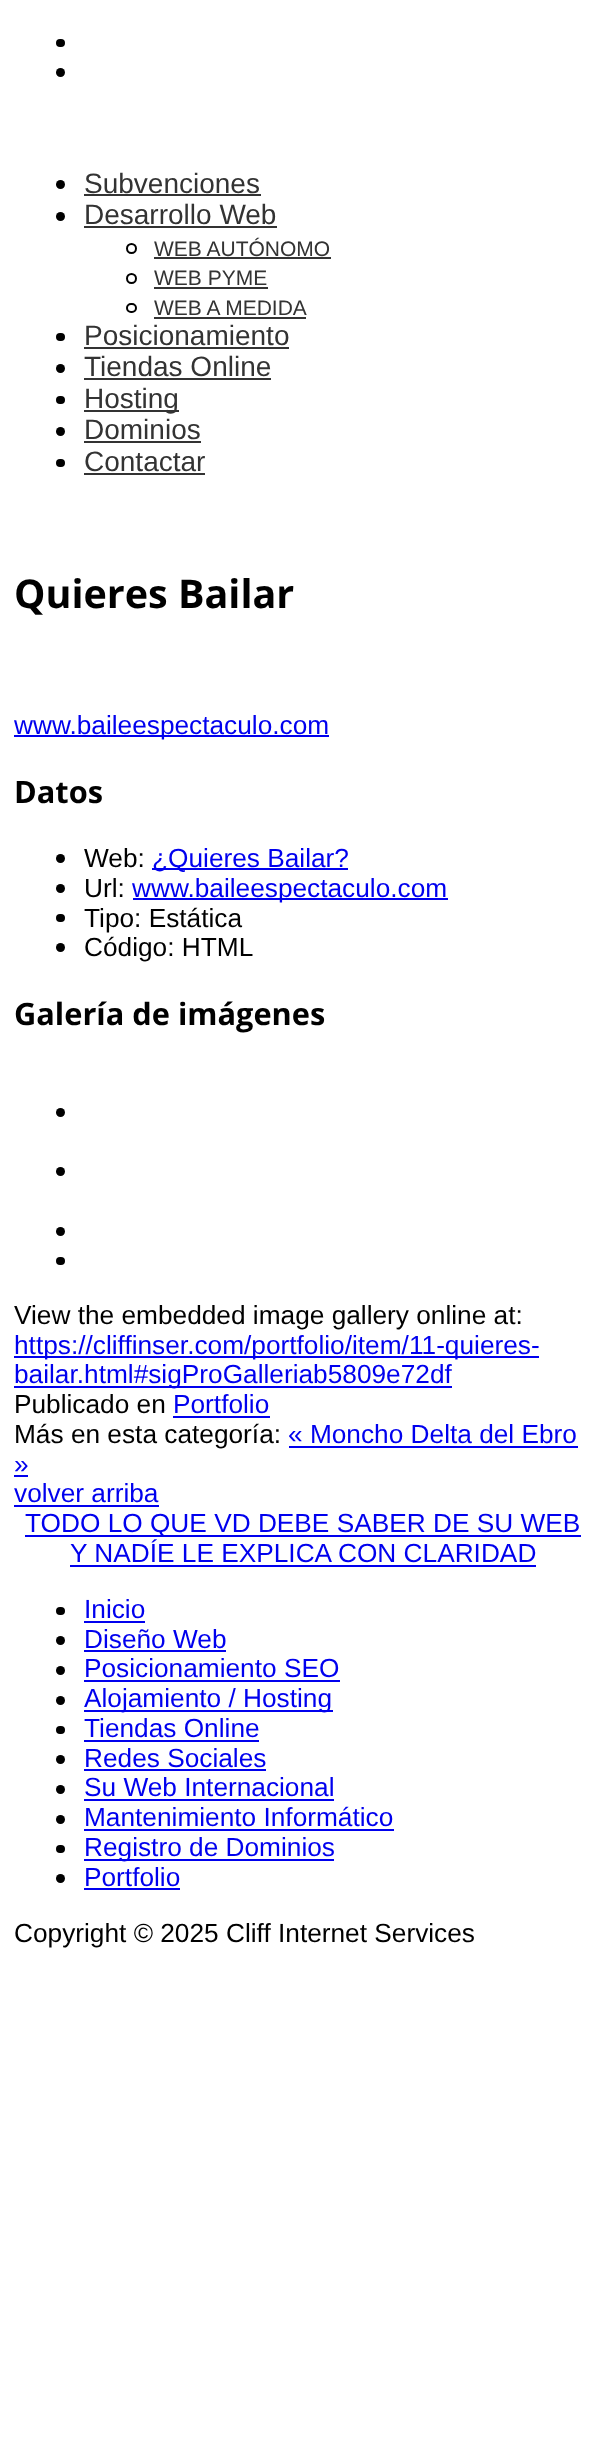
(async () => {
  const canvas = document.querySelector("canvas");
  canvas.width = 605;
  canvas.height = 2440;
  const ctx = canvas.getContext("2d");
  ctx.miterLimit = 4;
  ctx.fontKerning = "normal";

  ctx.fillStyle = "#ffffff";
  ctx.fillRect(0, 0, 605, 2440);
  ctx.fillStyle = "#000000";
  ctx.beginPath();
  ctx.roundRect(56, 39, 9, 8, 4);
  ctx.fill();
  ctx.beginPath();
  ctx.arc(60.5, 72.5, 4.5, 0, Math.PI * 2);
  ctx.fill();
  ctx.beginPath();
  ctx.arc(60.5, 184.5, 4.5, 0, Math.PI * 2);
  ctx.fill();
  ctx.fillStyle = "#333333";
  ctx.fillRect(84, 194, 177, 2);
  ctx.fillStyle = "#000000";
  ctx.beginPath();
  ctx.arc(60.5, 216.5, 4.5, 0, Math.PI * 2);
  ctx.fill();
  ctx.fillStyle = "#333333";
  ctx.fillRect(84, 226, 193, 2);
  ctx.beginPath();
  ctx.arc(131.5, 248.5, 4.5, 0, Math.PI * 2);
  ctx.strokeStyle = "#000000";
  ctx.lineWidth = 2;
  ctx.stroke();
  ctx.fillRect(154, 257, 177, 2);
  ctx.beginPath();
  ctx.arc(131.5, 278.5, 4.5, 0, Math.PI * 2);
  ctx.stroke();
  ctx.fillRect(154, 287, 114, 2);
  ctx.beginPath();
  ctx.roundRect(127, 304, 9, 8, 4);
  ctx.stroke();
  ctx.fillRect(154, 317, 152, 2);
  ctx.fillStyle = "#000000";
  ctx.beginPath();
  ctx.roundRect(56, 333, 9, 8, 4);
  ctx.fill();
  ctx.fillStyle = "#333333";
  ctx.fillRect(84, 347, 205, 2);
  ctx.fillStyle = "#000000";
  ctx.beginPath();
  ctx.arc(60.5, 368.5, 4.5, 0, Math.PI * 2);
  ctx.fill();
  ctx.fillStyle = "#333333";
  ctx.fillRect(84, 378, 187, 2);
  ctx.fillStyle = "#000000";
  ctx.beginPath();
  ctx.roundRect(56, 396, 9, 8, 4);
  ctx.fill();
  ctx.fillStyle = "#333333";
  ctx.fillRect(84, 410, 95, 2);
  ctx.fillStyle = "#000000";
  ctx.beginPath();
  ctx.arc(60.5, 431.5, 4.5, 0, Math.PI * 2);
  ctx.fill();
  ctx.fillStyle = "#333333";
  ctx.fillRect(84, 441, 117, 2);
  ctx.fillStyle = "#000000";
  ctx.beginPath();
  ctx.roundRect(56, 459, 9, 8, 4);
  ctx.fill();
  ctx.fillStyle = "#333333";
  ctx.fillRect(84, 473, 121, 2);
  ctx.fillStyle = "#0000ee";
  ctx.fillRect(14, 735, 315, 2);
  ctx.fillStyle = "#000000";
  ctx.beginPath();
  ctx.arc(60.5, 858.5, 4.5, 0, Math.PI * 2);
  ctx.fill();
  ctx.fillStyle = "#0000ee";
  ctx.fillRect(152, 868, 196, 2);
  ctx.fillStyle = "#000000";
  ctx.beginPath();
  ctx.arc(60.5, 888.5, 4.5, 0, Math.PI * 2);
  ctx.fill();
  ctx.fillStyle = "#0000ee";
  ctx.fillRect(133, 898, 315, 2);
  ctx.fillStyle = "#000000";
  ctx.beginPath();
  ctx.roundRect(56, 914, 9, 8, 4);
  ctx.fill();
  ctx.beginPath();
  ctx.arc(60.5, 947.5, 4.5, 0, Math.PI * 2);
  ctx.fill();
  ctx.beginPath();
  ctx.arc(60.5, 1112.5, 4.5, 0, Math.PI * 2);
  ctx.fill();
  ctx.beginPath();
  ctx.arc(60.5, 1171.5, 4.5, 0, Math.PI * 2);
  ctx.fill();
  ctx.beginPath();
  ctx.arc(60.5, 1231.5, 4.5, 0, Math.PI * 2);
  ctx.fill();
  ctx.beginPath();
  ctx.roundRect(56, 1257, 9, 8, 4);
  ctx.fill();
  for (const [x, y, w, h, color] of [
    [14, 1356, 525, 2, "#0000ee"],
    [14, 1386, 438, 2, "#0000ee"],
    [173, 1416, 97, 2, "#0000ee"],
    [289, 1446, 289, 2, "#0000ee"],
    [14, 1475, 14, 2, "#0000ee"],
    [14, 1505, 145, 2, "#0000ee"],
    [25, 1535, 556, 2, "#0000ee"],
    [70, 1565, 466, 2, "#0000ee"],
  ]) {
    ctx.fillStyle = color;
    ctx.fillRect(x, y, w, h);
  }
  ctx.fillStyle = "#000000";
  ctx.beginPath();
  ctx.roundRect(56, 1607, 9, 8, 4);
  ctx.fill();
  ctx.fillStyle = "#0000ee";
  ctx.fillRect(84, 1621, 61, 2);
  ctx.fillStyle = "#000000";
  ctx.beginPath();
  ctx.arc(60.5, 1640.5, 4.5, 0, Math.PI * 2);
  ctx.fill();
  ctx.fillStyle = "#0000ee";
  ctx.fillRect(84, 1650, 142, 2);
  ctx.fillStyle = "#000000";
  ctx.beginPath();
  ctx.arc(60.5, 1670.5, 4.5, 0, Math.PI * 2);
  ctx.fill();
  ctx.fillStyle = "#0000ee";
  ctx.fillRect(84, 1680, 256, 2);
  ctx.fillStyle = "#000000";
  ctx.beginPath();
  ctx.arc(60.5, 1700.5, 4.5, 0, Math.PI * 2);
  ctx.fill();
  ctx.fillStyle = "#0000ee";
  ctx.fillRect(84, 1710, 249, 2);
  ctx.fillStyle = "#000000";
  ctx.beginPath();
  ctx.roundRect(56, 1726, 9, 8, 4);
  ctx.fill();
  ctx.fillStyle = "#0000ee";
  ctx.fillRect(84, 1740, 175, 2);
  ctx.fillStyle = "#000000";
  ctx.beginPath();
  ctx.arc(60.5, 1759.5, 4.5, 0, Math.PI * 2);
  ctx.fill();
  ctx.fillStyle = "#0000ee";
  ctx.fillRect(84, 1769, 182, 2);
  ctx.fillStyle = "#000000";
  ctx.beginPath();
  ctx.arc(60.5, 1789.5, 4.5, 0, Math.PI * 2);
  ctx.fill();
  ctx.fillStyle = "#0000ee";
  ctx.fillRect(84, 1799, 250, 2);
  ctx.fillStyle = "#000000";
  ctx.beginPath();
  ctx.arc(60.5, 1819.5, 4.5, 0, Math.PI * 2);
  ctx.fill();
  ctx.fillStyle = "#0000ee";
  ctx.fillRect(84, 1829, 310, 2);
  ctx.fillStyle = "#000000";
  ctx.beginPath();
  ctx.roundRect(56, 1845, 9, 8, 4);
  ctx.fill();
  ctx.fillStyle = "#0000ee";
  ctx.fillRect(84, 1859, 250, 2);
  ctx.fillStyle = "#000000";
  ctx.beginPath();
  ctx.arc(60.5, 1878.5, 4.5, 0, Math.PI * 2);
  ctx.fill();
  ctx.fillStyle = "#0000ee";
  ctx.fillRect(84, 1888, 96, 2);
  ctx.font = "28px Liberation Sans";
  ctx.fillStyle = "#333333";
  ctx.fillText("Subvenciones", 84, 193);
  ctx.fillText("Desarrollo Web", 84, 224);
  ctx.font = "21px Liberation Sans";
  for (const [text, x, y] of [
    ["WEB AUTÓNOMO", 154, 256],
    ["WEB PYME", 154, 285],
    ["WEB A MEDIDA", 154, 315],
  ]) {
    ctx.fillText(text, x, y);
  }
  ctx.font = "28px Liberation Sans";
  for (const [text, x, y] of [
    ["Posicionamiento", 84, 345],
    ["Tiendas Online", 84, 376],
    ["Hosting", 84, 408],
    ["Dominios", 84, 439],
    ["Contactar", 84, 471],
  ]) {
    ctx.fillText(text, x, y);
  }
  ctx.font = "bold 39.5px Open Sans";
  ctx.fillStyle = "#000000";
  ctx.fillText("Quieres Bailar", 14, 608);
  ctx.font = "26.25px Liberation Sans";
  ctx.fillStyle = "#0000ee";
  ctx.fillText("www.baileespectaculo.com", 14, 734);
  ctx.font = "bold 30.75px Open Sans";
  ctx.fillStyle = "#000000";
  ctx.fillText("Datos", 14, 803);
  ctx.font = "26.25px Liberation Sans";
  ctx.fillText("Web:", 84, 867);
  ctx.fillStyle = "#0000ee";
  ctx.fillText("¿Quieres Bailar?", 152, 867);
  ctx.fillStyle = "#000000";
  ctx.fillText("Url:", 84, 897);
  ctx.fillStyle = "#0000ee";
  ctx.fillText("www.baileespectaculo.com", 132, 897);
  ctx.fillStyle = "#000000";
  ctx.fillText("Tipo: Estática", 84, 927);
  ctx.fillText("Código: HTML", 84, 956);
  ctx.font = "bold 30.75px Open Sans";
  ctx.fillText("Galería de imágenes", 14, 1025);
  ctx.font = "26.25px Liberation Sans";
  ctx.fillText("View the embedded image gallery online at:", 14, 1324);
  ctx.fillStyle = "#0000ee";
  ctx.fillText("https://cliffinser.com/portfolio/item/11-quieres-", 14, 1354);
  ctx.fillText("bailar.html#sigProGalleriab5809e72df", 14, 1383);
  ctx.fillStyle = "#000000";
  ctx.fillText("Publicado en", 14, 1413);
  ctx.fillStyle = "#0000ee";
  ctx.fillText("Portfolio", 173, 1413);
  ctx.fillStyle = "#000000";
  ctx.fillText("Más en esta categoría:", 14, 1443);
  ctx.fillStyle = "#0000ee";
  for (const [text, x, y] of [
    ["« Moncho Delta del Ebro", 288, 1443],
    ["»", 14, 1473],
    ["volver arriba", 14, 1502],
    ["TODO LO QUE VD DEBE SABER DE SU WEB", 25, 1532],
    ["Y NADÍE LE EXPLICA CON CLARIDAD", 70, 1562],
    ["Inicio", 84, 1618],
    ["Diseño Web", 84, 1648],
    ["Posicionamiento SEO", 84, 1677],
    ["Alojamiento / Hosting", 84, 1707],
    ["Tiendas Online", 84, 1737],
    ["Redes Sociales", 84, 1767],
    ["Su Web Internacional", 84, 1796],
    ["Mantenimiento Informático", 84, 1826],
    ["Registro de Dominios", 84, 1856],
    ["Portfolio", 84, 1886],
  ]) {
    ctx.fillText(text, x, y);
  }
  ctx.fillStyle = "#000000";
  ctx.fillText("Copyright © 2025 Cliff Internet Services", 14, 1942);
})();
